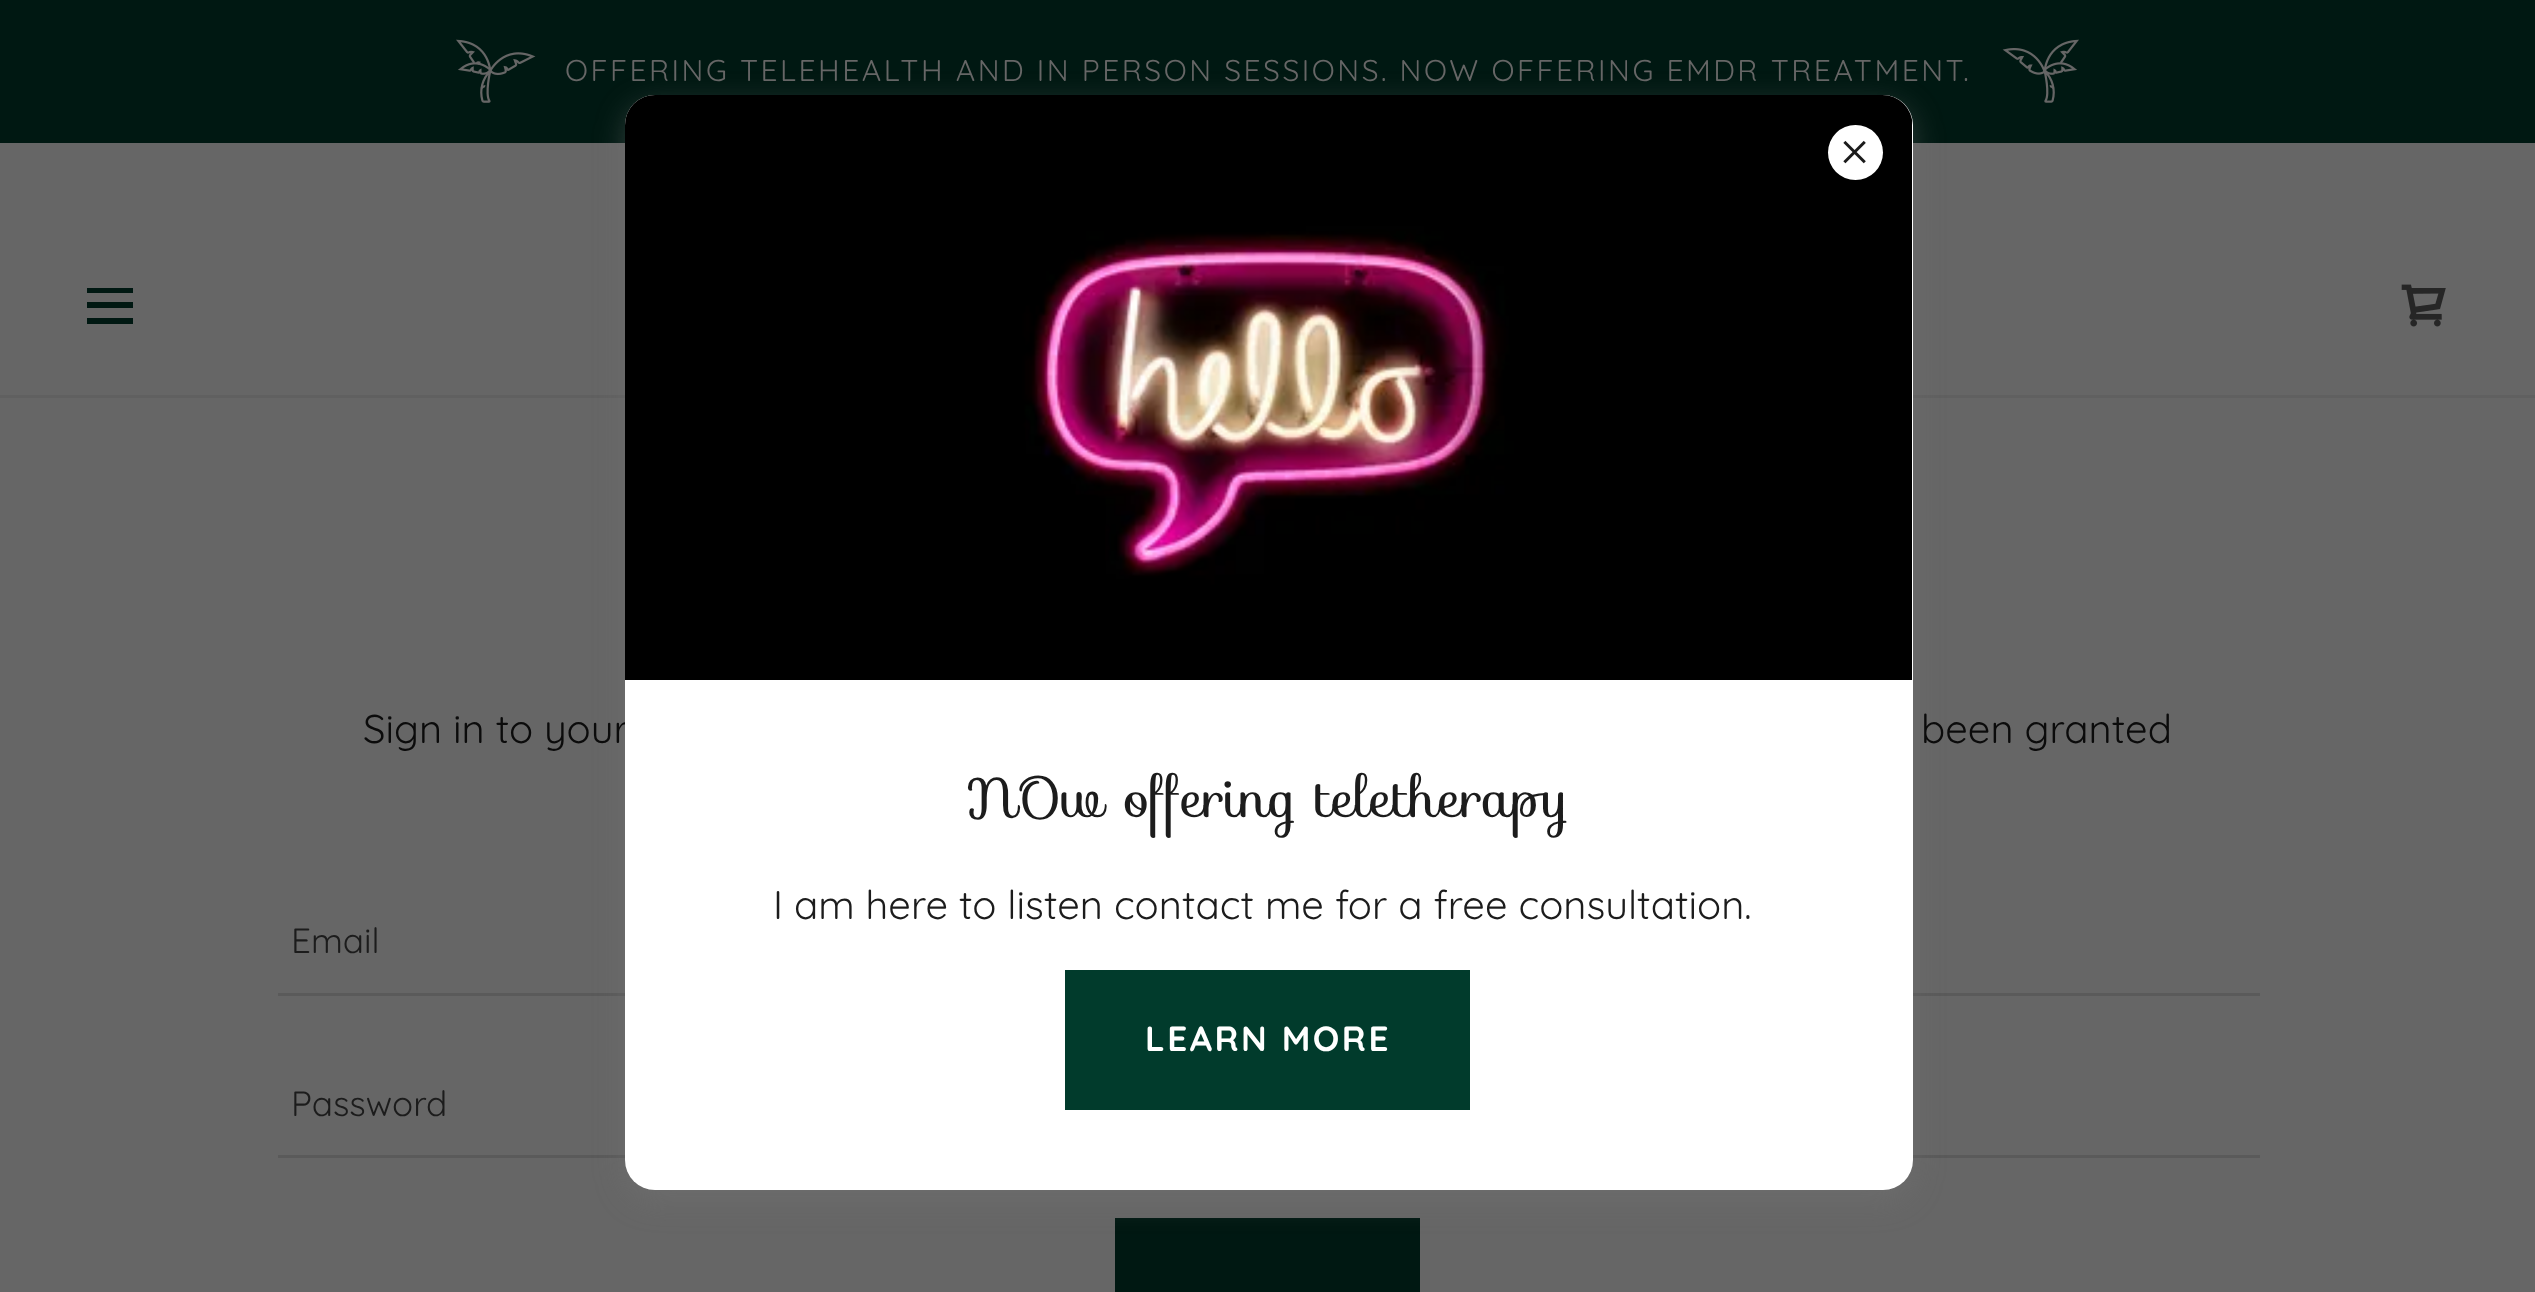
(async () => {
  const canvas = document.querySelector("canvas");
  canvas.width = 2535;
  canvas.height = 1292;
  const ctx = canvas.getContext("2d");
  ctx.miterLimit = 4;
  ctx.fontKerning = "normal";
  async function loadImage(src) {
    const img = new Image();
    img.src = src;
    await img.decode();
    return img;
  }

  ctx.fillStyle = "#666666";
  ctx.fillRect(0, 0, 2535, 1292);
  ctx.fillStyle = "#001812";
  ctx.fillRect(0, 0, 2535, 143);
  ctx.drawImage(await loadImage("img/1.png"), 456, 39, 80, 64);
  ctx.drawImage(await loadImage("img/2.png"), 2002, 39, 77, 64);
  for (const [x, y, w, h, color] of [
    [0, 395, 2535, 3, "#606060"],
    [87, 288, 46, 5, "#001812"],
    [87, 302, 46, 6, "#001812"],
    [87, 318, 46, 6, "#001812"],
  ]) {
    ctx.fillStyle = color;
    ctx.fillRect(x, y, w, h);
  }
  ctx.drawImage(await loadImage("img/3.png"), 2401, 284, 45, 43);
  for (const [x, y, w, h, color] of [
    [278, 993, 1982, 3, "#5a5a5a"],
    [278, 1155, 1982, 3, "#5a5a5a"],
    [1115, 1218, 305, 74, "#001812"],
  ]) {
    ctx.fillStyle = color;
    ctx.fillRect(x, y, w, h);
  }
  ctx.fillStyle = "rgba(117, 117, 117, 0.4)";
  ctx.filter = "blur(15px)";
  ctx.beginPath();
  ctx.roundRect(625, 105, 1288, 1095, 30);
  ctx.fill();
  ctx.filter = "none";
  ctx.letterSpacing = "2.5px";
  ctx.font = "30px Quicksand";
  ctx.fillStyle = "#666666";
  ctx.fillText("OFFERING TELEHEALTH AND IN PERSON SESSIONS. NOW OFFERING EMDR TREATMENT.", 565, 81);
  ctx.letterSpacing = "0px";
  ctx.font = "40px Quicksand";
  ctx.fillStyle = "#0b0b0b";
  ctx.fillText("Sign in to your", 363, 743);
  ctx.fillText("been granted", 1921, 743);
  ctx.font = "35px Quicksand";
  ctx.fillStyle = "#1c1c1c";
  ctx.fillText("Email", 291, 953);
  ctx.fillText("Password", 291, 1116);
  ctx.fillStyle = "#ffffff";
  ctx.beginPath();
  ctx.roundRect(625, 95, 1288, 1095, 30);
  ctx.fill();
  ctx.drawImage(await loadImage("img/5.png"), 625, 95, 1287, 585);
  ctx.beginPath();
  ctx.arc(1855.5, 152.5, 27.5, 0, Math.PI * 2);
  ctx.fill();
  ctx.drawImage(await loadImage("img/4.png"), 1843, 140, 23, 24);
  ctx.font = "55px Sofia";
  ctx.fillStyle = "#1c1c1c";
  ctx.fillText("NOw offering teletherapy", 966, 817);
  ctx.font = "40px Quicksand";
  ctx.fillText("I am here to listen contact me for a free consultation.", 773, 919);
  ctx.fillStyle = "#013b2c";
  ctx.fillRect(1065, 970, 405, 140);
  ctx.letterSpacing = "2.5px";
  ctx.font = "bold 35px Quicksand";
  ctx.fillStyle = "#ffffff";
  ctx.fillText("LEARN MORE", 1145, 1051);
})();
